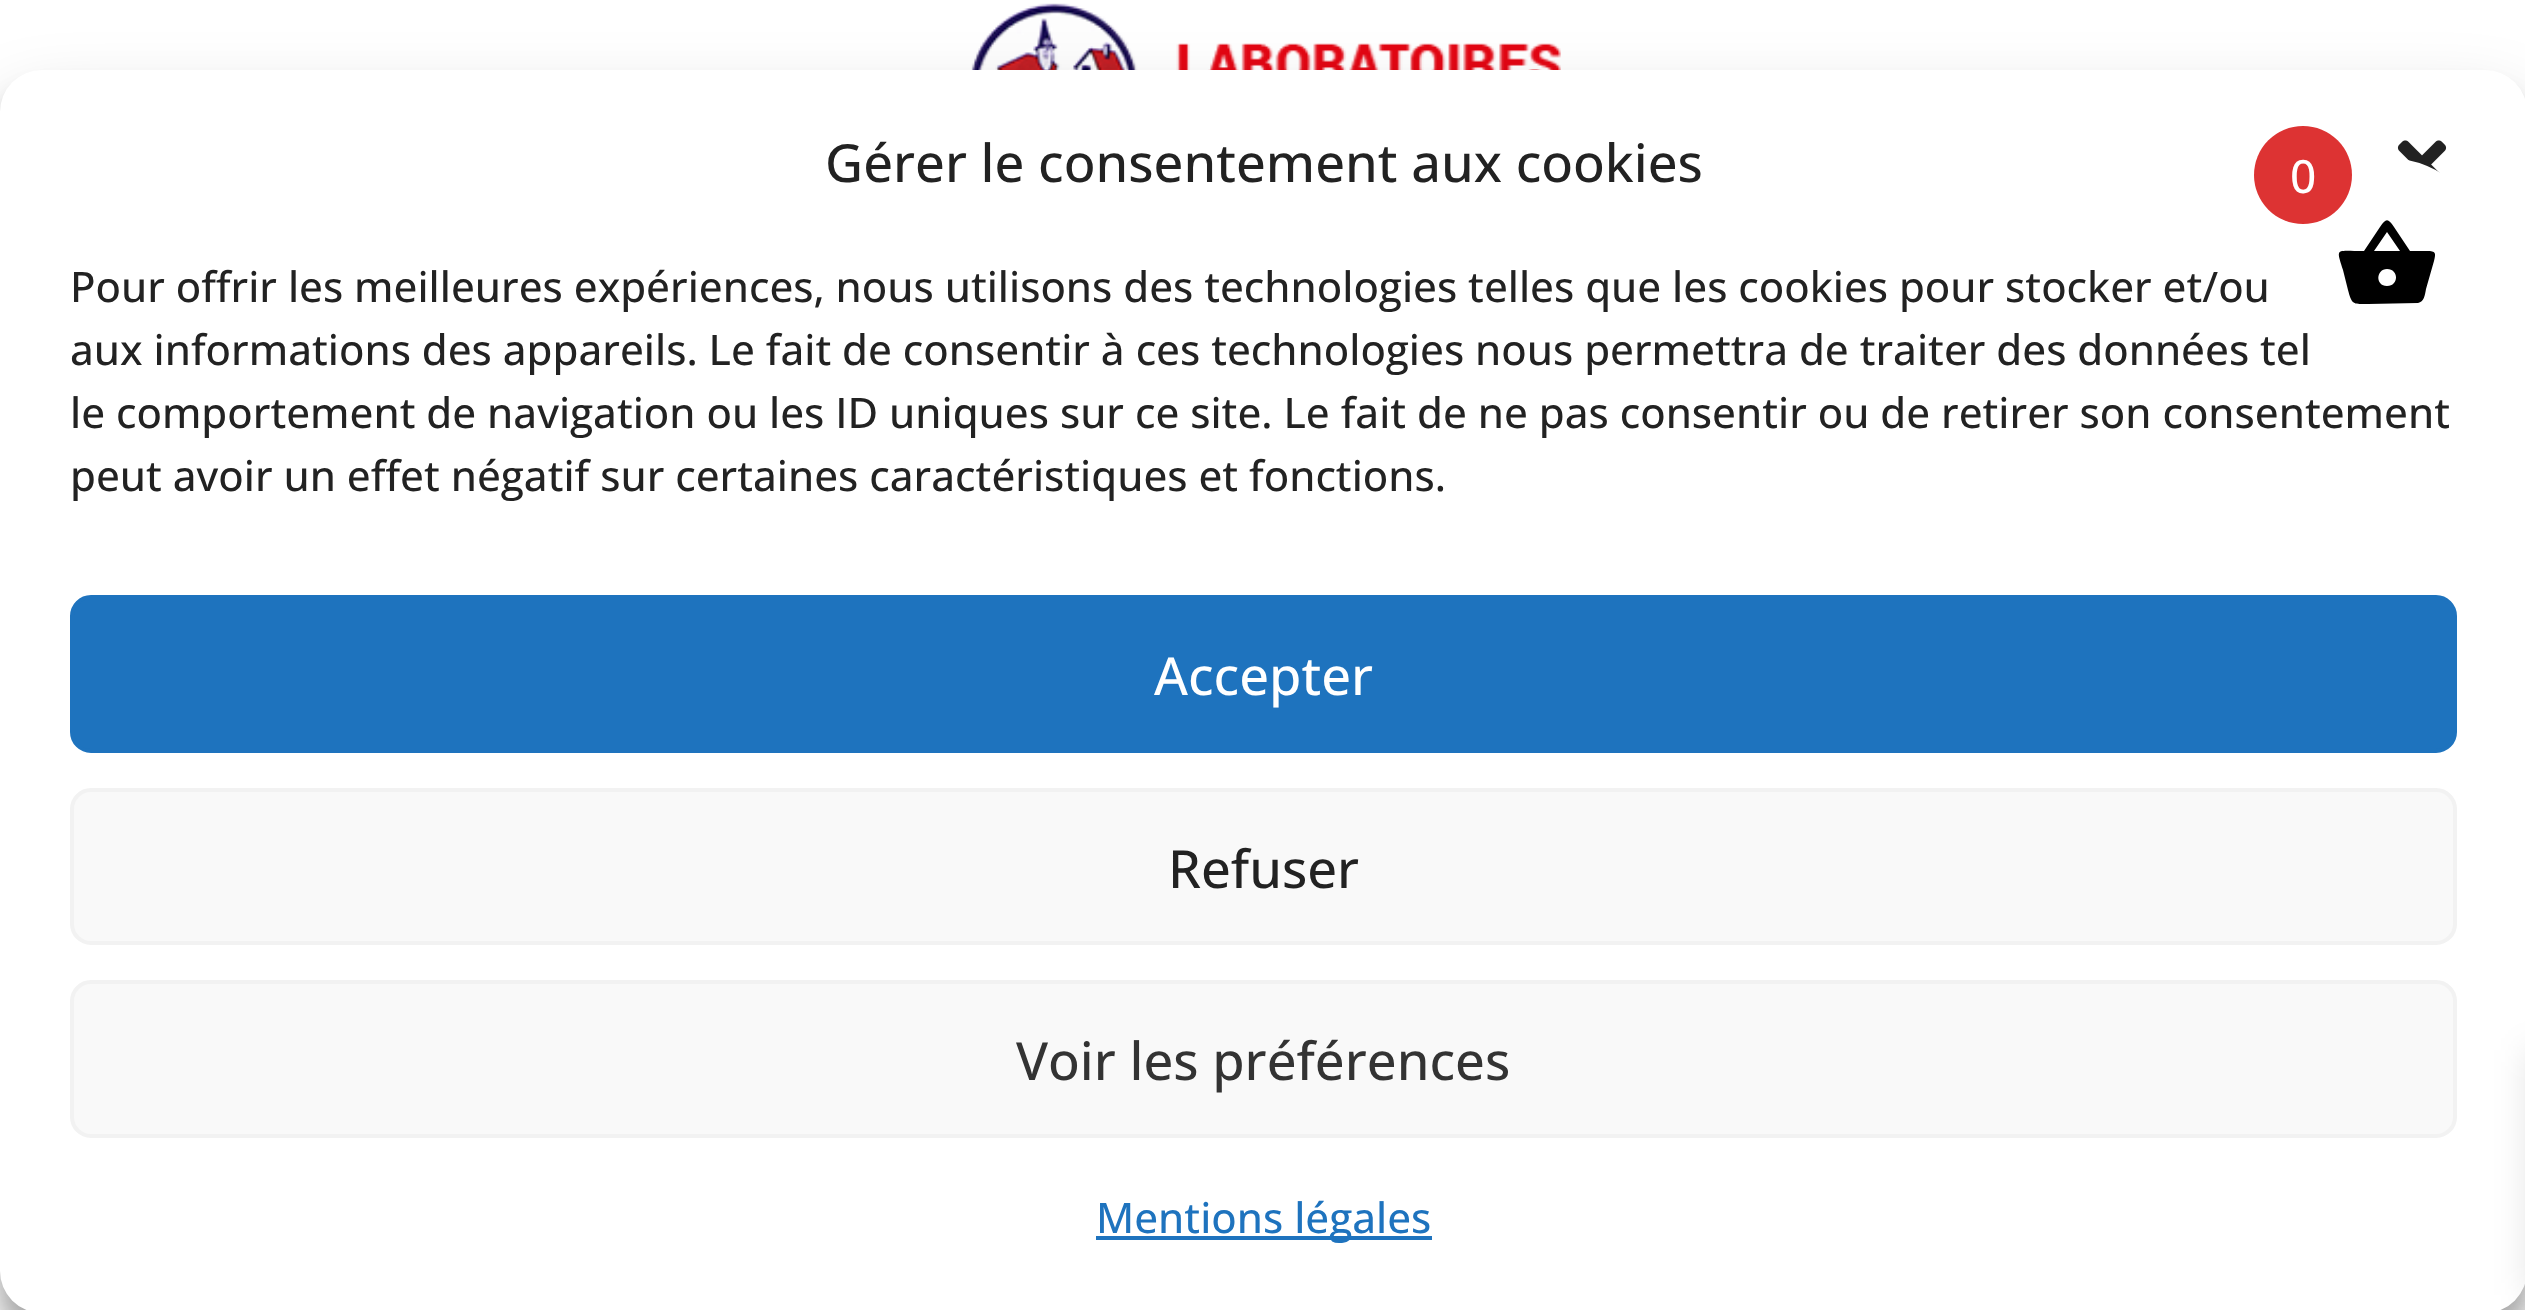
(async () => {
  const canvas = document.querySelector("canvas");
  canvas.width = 2525;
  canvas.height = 1310;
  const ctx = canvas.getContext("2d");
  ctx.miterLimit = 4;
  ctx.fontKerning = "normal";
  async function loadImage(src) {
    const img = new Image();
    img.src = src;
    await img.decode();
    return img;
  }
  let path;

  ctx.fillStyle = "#ffffff";
  ctx.fillRect(0, 0, 2525, 1310);
  ctx.drawImage(await loadImage("img/1.png"), 969, 3, 592, 67);
  ctx.fillStyle = "rgba(0, 0, 0, 0.23)";
  ctx.filter = "blur(10.5px)";
  ctx.beginPath();
  ctx.roundRect(0, 91, 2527, 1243, 42);
  ctx.fill();
  ctx.filter = "none";
  ctx.fillStyle = "rgba(0, 0, 0, 0.19)";
  ctx.filter = "blur(35px)";
  ctx.beginPath();
  ctx.roundRect(0, 105, 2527, 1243, 42);
  ctx.fill();
  ctx.filter = "none";
  ctx.fillStyle = "#ffffff";
  ctx.beginPath();
  ctx.roundRect(0, 70, 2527, 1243, 42);
  ctx.fill();
  ctx.drawImage(await loadImage("img/2.png"), 2397, 140, 50, 33);
  ctx.fillStyle = "#1e73be";
  ctx.beginPath();
  ctx.roundRect(72, 597, 2383, 154, 19);
  ctx.fill();
  ctx.strokeStyle = "#1e73be";
  ctx.lineWidth = 4;
  ctx.stroke();
  ctx.fillStyle = "#f9f9f9";
  ctx.beginPath();
  ctx.roundRect(72, 790, 2383, 153, 19);
  ctx.fill();
  ctx.strokeStyle = "#f2f2f2";
  ctx.stroke();
  ctx.beginPath();
  ctx.roundRect(72, 982, 2383, 154, 19);
  ctx.fill();
  ctx.stroke();
  ctx.fillStyle = "#1e73be";
  ctx.fillRect(1096, 1236, 336, 4);
  ctx.fillStyle = "rgba(0, 0, 0, 0.1)";
  ctx.filter = "blur(17.5px)";
  ctx.beginPath();
  ctx.rect(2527, 1050, 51, 245);
  ctx.fill();
  ctx.filter = "none";
  ctx.font = "500 52.5px Open Sans";
  ctx.fillStyle = "#222222";
  ctx.fillText("Gérer le consentement aux cookies", 825, 182);
  ctx.font = "500 42px Open Sans";
  for (const [text, x, y] of [
    ["Pour offrir les meilleures expériences, nous utilisons des technologies telles que les cookies pour stocker et/ou", 70, 302],
    ["aux informations des appareils. Le fait de consentir à ces technologies nous permettra de traiter des données tel", 70, 365],
    ["le comportement de navigation ou les ID uniques sur ce site. Le fait de ne pas consentir ou de retirer son consentement", 70, 428],
    ["peut avoir un effet négatif sur certaines caractéristiques et fonctions.", 70, 491],
  ]) {
    ctx.fillText(text, x, y);
  }
  ctx.font = "500 52.5px Open Sans";
  ctx.fillStyle = "#ffffff";
  ctx.fillText("Accepter", 1154, 695);
  ctx.fillStyle = "#222222";
  ctx.fillText("Refuser", 1168, 888);
  ctx.fillStyle = "#333333";
  ctx.fillText("Voir les préférences", 1016, 1080);
  ctx.font = "500 42px Open Sans";
  ctx.fillStyle = "#1e73be";
  ctx.fillText("Mentions légales", 1096, 1233);
  ctx.fillStyle = "#ffffff";
  ctx.beginPath();
  ctx.arc(2387, 263, 105, 0, Math.PI * 2);
  ctx.fill();
  ctx.fillStyle = "#000000";
  path = new Path2D("M2387 286C2399 286 2399 269 2387 269C2376 269 2375 286 2387 286ZM2374 251H2400L2387 232ZM2410 251H2427C2436 251 2436 253 2434 261L2426 289C2425 295 2424 302 2418 303L2368 304C2353 304 2352 305 2348 290L2343 270C2336 247 2335 251 2364 251L2380 227C2386 218 2388 218 2394 227Z");
  ctx.fill(path);
  ctx.fillStyle = "#dd3333";
  ctx.beginPath();
  ctx.arc(2303, 175, 49, 0, Math.PI * 2);
  ctx.fill();
  ctx.font = "500 46px Open Sans";
  ctx.fillStyle = "#ffffff";
  ctx.fillText("0", 2290, 193);
})();
